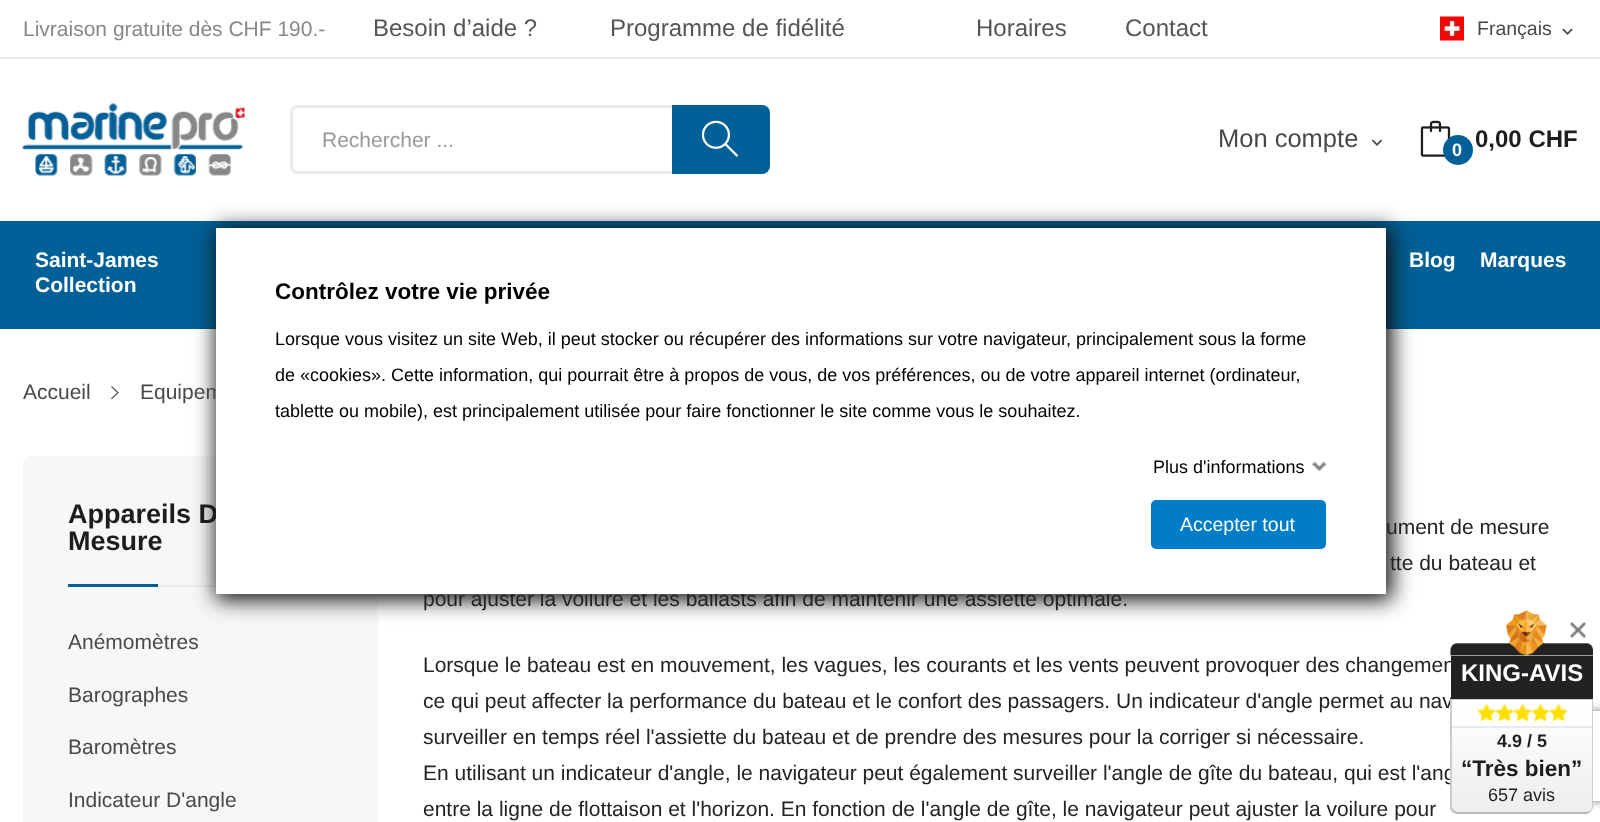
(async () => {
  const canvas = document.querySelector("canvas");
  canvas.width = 1600;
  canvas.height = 822;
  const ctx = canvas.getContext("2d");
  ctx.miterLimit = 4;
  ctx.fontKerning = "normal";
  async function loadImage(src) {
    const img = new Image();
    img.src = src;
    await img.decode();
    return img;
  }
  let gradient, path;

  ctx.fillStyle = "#ffffff";
  ctx.fillRect(0, 0, 1600, 822);
  ctx.fillStyle = "#ebebeb";
  ctx.fillRect(0, 57, 1600, 2);
  ctx.drawImage(await loadImage("img/1.png"), 1440, 16, 24, 25);
  ctx.drawImage(await loadImage("img/2.png"), 1562, 28, 11, 7);
  ctx.drawImage(await loadImage("img/3.png"), 22, 103, 223, 73);
  ctx.beginPath();
  ctx.roundRect(291.5, 106.5, 477, 66, 6.5);
  ctx.strokeStyle = "#ebebeb";
  ctx.lineWidth = 3;
  ctx.stroke();
  ctx.fillStyle = "#006097";
  ctx.beginPath();
  ctx.roundRect(672, 105, 98, 69, [0, 8, 8, 0]);
  ctx.fill();
  ctx.drawImage(await loadImage("img/4.png"), 701, 120, 37, 37);
  ctx.drawImage(await loadImage("img/5.png"), 1371, 139, 12, 7);
  ctx.drawImage(await loadImage("img/6.png"), 1420, 120, 31, 37);
  ctx.beginPath();
  ctx.arc(1458, 150, 15, 0, Math.PI * 2);
  ctx.fill();
  ctx.fillRect(0, 221, 1600, 108);
  ctx.drawImage(await loadImage("img/7.png"), 111, 386, 8, 14);
  ctx.fillStyle = "#f7f7f7";
  ctx.beginPath();
  ctx.roundRect(23, 456, 355, 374, 8);
  ctx.fill();
  ctx.fillStyle = "#ebebeb";
  ctx.fillRect(158, 585, 58, 2);
  ctx.fillStyle = "#006097";
  ctx.fillRect(68, 584, 90, 3);
  ctx.save();
  path = new Path2D("M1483 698H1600V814H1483ZM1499 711H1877C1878.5 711 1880 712.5 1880 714V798C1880 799.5 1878.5 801 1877 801H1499C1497.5 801 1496 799.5 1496 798V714C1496 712.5 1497.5 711 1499 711Z");
  ctx.clip(path, "evenodd");
  ctx.fillStyle = "#808080";
  ctx.filter = "blur(4px)";
  ctx.beginPath();
  ctx.roundRect(1496, 711, 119, 90, 3);
  ctx.fill();
  ctx.filter = "none";
  ctx.restore();
  ctx.fillStyle = "#121212";
  ctx.filter = "blur(10.5px)";
  ctx.beginPath();
  ctx.rect(216, 228, 1176, 372);
  ctx.fill();
  ctx.filter = "none";
  ctx.drawImage(await loadImage("img/9.png"), 1450, 610, 143, 46);
  ctx.drawImage(await loadImage("img/10.png"), 1570, 622, 16, 16);
  ctx.font = "21px Liberation Sans";
  ctx.fillStyle = "#888888";
  ctx.fillText("Livraison gratuite dès CHF 190.-", 23, 36);
  ctx.font = "24px Liberation Sans";
  ctx.fillStyle = "#555555";
  for (const [text, x, y] of [
    ["Besoin d’aide ?", 373, 36],
    ["Programme de fidélité", 610, 36],
    ["Horaires", 976, 36],
    ["Contact", 1125, 36],
  ]) {
    ctx.fillText(text, x, y);
  }
  ctx.font = "19.5px Liberation Sans";
  ctx.fillStyle = "#47494a";
  ctx.fillText("Français", 1477, 35);
  ctx.font = "21px Liberation Sans";
  ctx.fillStyle = "#999999";
  ctx.fillText("Rechercher ...", 322, 147);
  ctx.font = "25.5px Liberation Sans";
  ctx.fillStyle = "#47494a";
  ctx.fillText("Mon compte", 1218, 147);
  ctx.font = "bold 18px Liberation Sans";
  ctx.fillStyle = "#ffffff";
  ctx.fillText("0", 1452, 156);
  ctx.font = "bold 24px Liberation Sans";
  ctx.fillStyle = "#1d1d1d";
  ctx.fillText("0,00 CHF", 1475, 147);
  ctx.font = "bold 21px Liberation Sans";
  ctx.fillStyle = "#ffffff";
  for (const [text, x, y] of [
    ["Saint-James", 35, 267],
    ["Collection", 35, 292],
    ["Blog", 1409, 267],
    ["Marques", 1480, 267],
  ]) {
    ctx.fillText(text, x, y);
  }
  ctx.font = "21px Liberation Sans";
  ctx.fillStyle = "#47494a";
  ctx.fillText("Accueil", 23, 399);
  ctx.fillText("Equipem", 140, 399);
  ctx.font = "bold 27px Liberation Sans";
  ctx.fillStyle = "#1d1d1d";
  ctx.fillText("Appareils D", 68, 523);
  ctx.fillText("Mesure", 68, 550);
  ctx.font = "21px Liberation Sans";
  ctx.fillStyle = "#47494a";
  for (const [text, x, y] of [
    ["Anémomètres", 68, 649],
    ["Barographes", 68, 702],
    ["Baromètres", 68, 754],
    ["Indicateur D'angle", 68, 807],
  ]) {
    ctx.fillText(text, x, y);
  }
  ctx.fillStyle = "#232323";
  for (const [text, x, y] of [
    ["ument de mesure", 1386, 534],
    ["tte du bateau et", 1390, 570],
    ["pour ajuster la voilure et les ballasts afin de maintenir une assiette optimale.", 423, 606],
    ["Lorsque le bateau est en mouvement, les vagues, les courants et les vents peuvent provoquer des changemen", 423, 672],
    ["ce qui peut affecter la performance du bateau et le confort des passagers. Un indicateur d'angle permet au nav", 423, 708],
    ["surveiller en temps réel l'assiette du bateau et de prendre des mesures pour la corriger si nécessaire.", 423, 744],
    ["En utilisant un indicateur d'angle, le navigateur peut également surveiller l'angle de gîte du bateau, qui est l'ang", 423, 780],
    ["entre la ligne de flottaison et l'horizon. En fonction de l'angle de gîte, le navigateur peut ajuster la voilure pour", 423, 816],
  ]) {
    ctx.fillText(text, x, y);
  }
  ctx.fillStyle = "#ffffff";
  ctx.fillRect(216, 228, 1170, 366);
  ctx.font = "bold 22.5px Liberation Sans";
  ctx.fillStyle = "#000000";
  ctx.fillText("Contrôlez votre vie privée", 275, 299);
  ctx.font = "18px Liberation Sans";
  for (const [text, x, y] of [
    ["Lorsque vous visitez un site Web, il peut stocker ou récupérer des informations sur votre navigateur, principalement sous la forme", 275, 345],
    ["de «cookies». Cette information, qui pourrait être à propos de vous, de vos préférences, ou de votre appareil internet (ordinateur,", 275, 381],
    ["tablette ou mobile), est principalement utilisée pour faire fonctionner le site comme vous le souhaitez.", 275, 417],
    ["Plus d'informations", 1153, 473],
  ]) {
    ctx.fillText(text, x, y);
  }
  ctx.drawImage(await loadImage("img/8.png"), 1312, 462, 15, 9);
  ctx.fillStyle = "#007dc6";
  ctx.beginPath();
  ctx.roundRect(1151, 500, 175, 49, 5);
  ctx.fill();
  ctx.font = "19.5px Liberation Sans";
  ctx.fillStyle = "#ffffff";
  ctx.fillText("Accepter tout", 1180, 531);
  ctx.fillStyle = "#222222";
  ctx.fillRect(1451, 656, 142, 43);
  ctx.font = "bold 24px Liberation Sans";
  ctx.fillStyle = "#ffffff";
  ctx.fillText("KING-AVIS", 1461, 681);
  gradient = ctx.createLinearGradient(1522, 701, 1522, 812);
  gradient.addColorStop(0, "#ffffff");
  gradient.addColorStop(1, "#eeeeee");
  ctx.fillStyle = gradient;
  path = new Path2D("M1452 700H1592V807C1592 809 1589 812 1586 812H1458C1455 812 1452 809 1452 807Z");
  ctx.fill(path);
  ctx.fillStyle = "#cccccc";
  path = new Path2D("M1452 700H1592L1593 699H1450Z");
  ctx.fill(path);
  path = new Path2D("M1593 699L1592 700V807L1591 810V811C1592 810 1593 809 1593 807Z");
  ctx.fill(path);
  ctx.fillStyle = "#bbbbbb";
  path = new Path2D("M1591 811C1590 813 1588 814 1586 814H1458C1456 814 1454 813 1452 812L1453 809C1454 811 1456 812 1458 812H1586C1588 812 1589 811 1591 810Z");
  ctx.fill(path);
  ctx.fillStyle = "#cccccc";
  path = new Path2D("M1452 812L1450 809V699L1452 700V807L1453 809Z");
  ctx.fill(path);
  ctx.fillStyle = "#ffffff";
  ctx.fillRect(1452, 717, 140, 9);
  ctx.fillStyle = "#e9e9e9";
  ctx.fillRect(1452, 726, 140, 2);
  ctx.drawImage(await loadImage("img/11.png"), 1477, 703, 19, 19);
  ctx.drawImage(await loadImage("img/12.png"), 1495, 703, 19, 19);
  ctx.drawImage(await loadImage("img/13.png"), 1513, 703, 19, 19);
  ctx.drawImage(await loadImage("img/12.png"), 1531, 703, 19, 19);
  ctx.drawImage(await loadImage("img/13.png"), 1549, 703, 19, 19);
  ctx.font = "bold 18px Liberation Sans";
  ctx.fillStyle = "#1d1d1d";
  ctx.fillText("4.9 / 5", 1497, 747);
  ctx.font = "bold 22.5px Liberation Sans";
  ctx.fillText("“Très bien”", 1461, 776);
  ctx.font = "18px Liberation Sans";
  ctx.fillText("657 avis", 1488, 801);
})();
